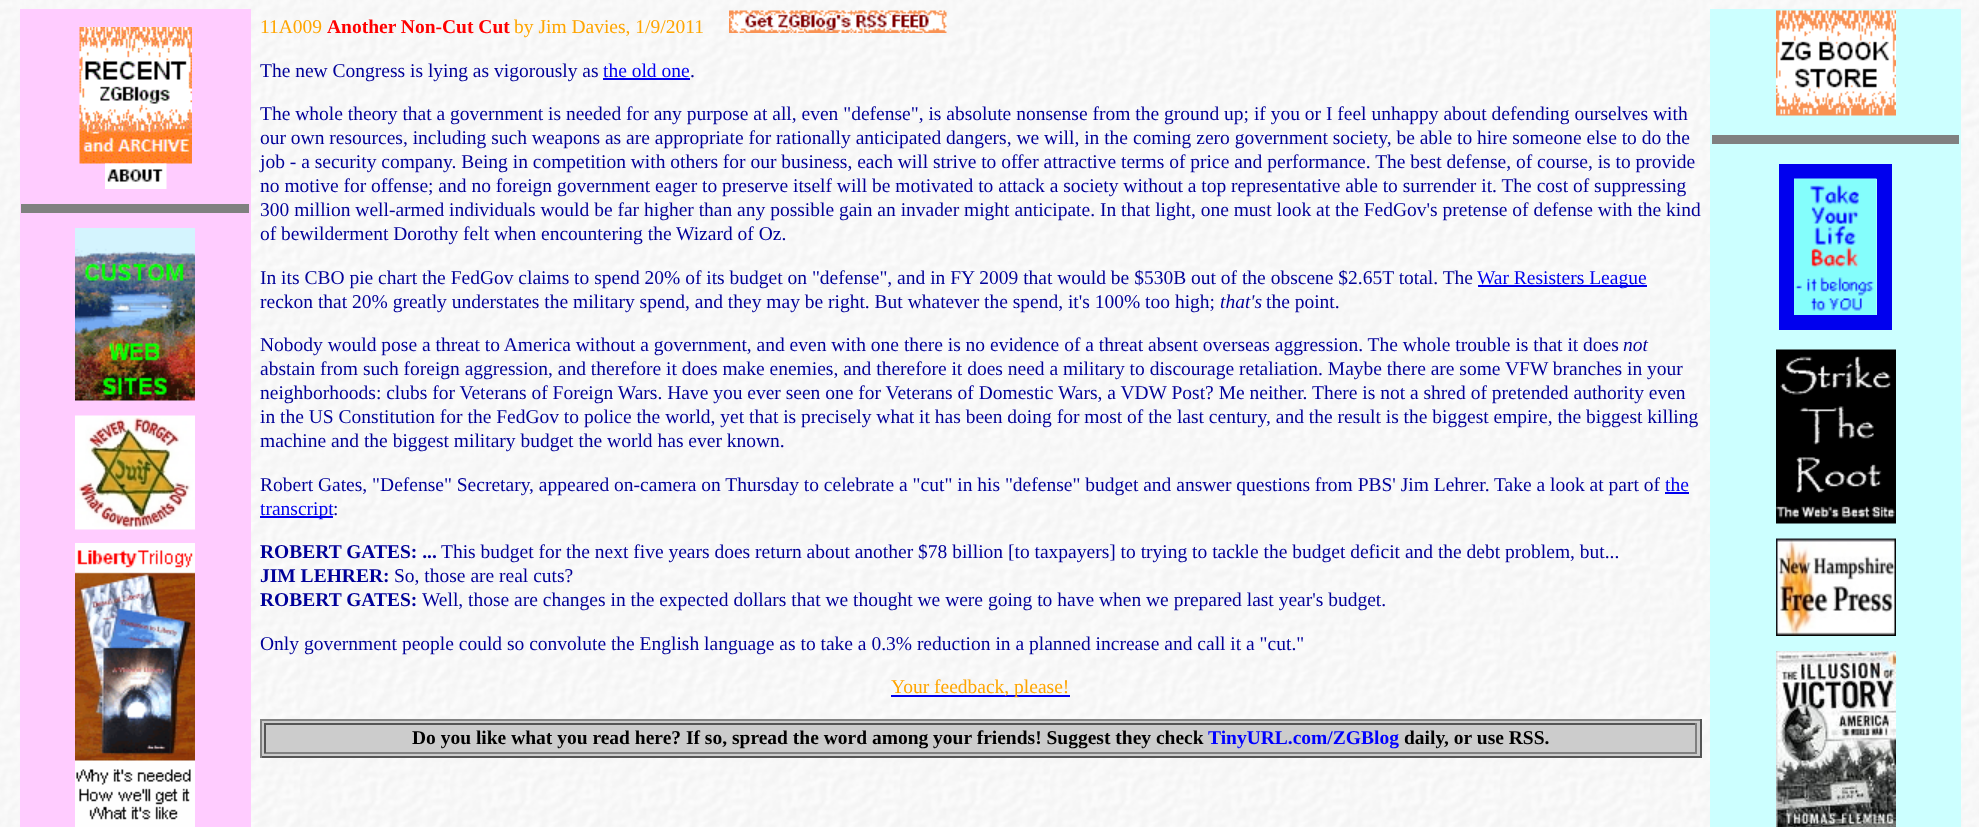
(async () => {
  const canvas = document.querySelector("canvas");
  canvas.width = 1979;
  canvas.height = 827;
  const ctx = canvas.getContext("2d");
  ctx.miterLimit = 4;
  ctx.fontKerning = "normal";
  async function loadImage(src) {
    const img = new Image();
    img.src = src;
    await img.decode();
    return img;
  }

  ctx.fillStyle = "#ffffff";
  ctx.fillRect(0, 0, 1979, 827);
  ctx.drawImage(await loadImage("img/1.png"), 0, 0, 1979, 827);
  ctx.fillStyle = "#ffccff";
  ctx.fillRect(20, 9, 231, 818);
  ctx.drawImage(await loadImage("img/2.png"), 79, 27, 113, 137);
  ctx.drawImage(await loadImage("img/3.png"), 105, 163, 62, 26);
  ctx.fillStyle = "#808080";
  ctx.fillRect(21, 204, 228, 9);
  ctx.drawImage(await loadImage("img/4.png"), 75, 228, 120, 173);
  ctx.drawImage(await loadImage("img/5.png"), 75, 415, 120, 115);
  ctx.drawImage(await loadImage("img/6.png"), 75, 543, 120, 284);
  ctx.drawImage(await loadImage("img/7.png"), 729, 10, 218, 23);
  for (const [x, y, w, h, color] of [
    [603, 78, 87, 2, "#0000ee"],
    [1478, 285, 169, 2, "#0000ee"],
    [1665, 492, 24, 2, "#0000ee"],
    [260, 516, 73, 2, "#0000ee"],
    [891, 695, 179, 2, "#0000ee"],
    [262, 721, 1438, 35, "#cccccc"],
    [260, 719, 1441, 2, "#808080"],
    [1700, 719, 2, 39, "#555555"],
    [260, 756, 1441, 2, "#555555"],
    [260, 719, 2, 39, "#808080"],
    [264, 723, 1433, 2, "#555555"],
    [1695, 723, 2, 30, "#808080"],
    [264, 752, 1433, 2, "#808080"],
    [264, 723, 2, 30, "#555555"],
    [1710, 9, 251, 818, "#ccffff"],
  ]) {
    ctx.fillStyle = color;
    ctx.fillRect(x, y, w, h);
  }
  ctx.drawImage(await loadImage("img/8.png"), 1776, 10, 120, 106);
  ctx.fillStyle = "#808080";
  ctx.fillRect(1712, 135, 247, 9);
  ctx.strokeStyle = "#0000ee";
  ctx.lineWidth = 15;
  ctx.strokeRect(1786.5, 171.5, 98, 151);
  ctx.drawImage(await loadImage("img/9.png"), 1794, 178, 83, 137);
  ctx.drawImage(await loadImage("img/10.png"), 1776, 349, 120, 175);
  ctx.drawImage(await loadImage("img/11.png"), 1776, 538, 120, 98);
  ctx.drawImage(await loadImage("img/12.png"), 1776, 651, 120, 176);
  ctx.font = "19.5px Liberation Serif";
  ctx.fillStyle = "#ffa500";
  ctx.fillText("11A009", 260, 33);
  ctx.font = "bold 19.5px Liberation Serif";
  ctx.fillStyle = "#ff0000";
  ctx.fillText("Another Non-Cut Cut", 327, 33);
  ctx.font = "19.5px Liberation Serif";
  ctx.fillStyle = "#ffa500";
  ctx.fillText("by Jim Davies, 1/9/2011", 514, 33);
  ctx.fillStyle = "#000099";
  ctx.fillText("The new Congress is lying as vigorously as", 260, 77);
  ctx.fillStyle = "#0000ee";
  ctx.fillText("the old one", 603, 77);
  ctx.fillStyle = "#000099";
  for (const [text, x, y] of [
    [".", 690, 77],
    ["The whole theory that a government is needed for any purpose at all, even \"defense\", is absolute nonsense from the ground up; if you or I feel unhappy about defending ourselves with", 260, 120],
    ["our own resources, including such weapons as are appropriate for rationally anticipated dangers, we will, in the coming zero government society, be able to hire someone else to do the", 260, 144],
    ["job - a security company. Being in competition with others for our business, each will strive to offer attractive terms of price and performance. The best defense, of course, is to provide", 260, 168],
    ["no motive for offense; and no foreign government eager to preserve itself will be motivated to attack a society without a top representative able to surrender it. The cost of suppressing", 260, 192],
    ["300 million well-armed individuals would be far higher than any possible gain an invader might anticipate. In that light, one must look at the FedGov's pretense of defense with the kind", 260, 216],
    ["of bewilderment Dorothy felt when encountering the Wizard of Oz.", 260, 240],
    ["In its CBO pie chart the FedGov claims to spend 20% of its budget on \"defense\", and in FY 2009 that would be $530B out of the obscene $2.65T total. The", 260, 284],
  ]) {
    ctx.fillText(text, x, y);
  }
  ctx.fillStyle = "#0000ee";
  ctx.fillText("War Resisters League", 1477, 284);
  ctx.fillStyle = "#000099";
  ctx.fillText("reckon that 20% greatly understates the military spend, and they may be right. But whatever the spend, it's 100% too high;", 260, 308);
  ctx.font = "italic 19.5px Liberation Serif";
  ctx.fillText("that's", 1220, 308);
  ctx.font = "19.5px Liberation Serif";
  ctx.fillText("the point.", 1266, 308);
  ctx.fillText("Nobody would pose a threat to America without a government, and even with one there is no evidence of a threat absent overseas aggression. The whole trouble is that it does", 260, 351);
  ctx.font = "italic 19.5px Liberation Serif";
  ctx.fillText("not", 1623, 351);
  ctx.font = "19.5px Liberation Serif";
  for (const [text, x, y] of [
    ["abstain from such foreign aggression, and therefore it does make enemies, and therefore it does need a military to discourage retaliation. Maybe there are some VFW branches in your", 260, 375],
    ["neighborhoods: clubs for Veterans of Foreign Wars. Have you ever seen one for Veterans of Domestic Wars, a VDW Post? Me neither. There is not a shred of pretended authority even", 260, 399],
    ["in the US Constitution for the FedGov to police the world, yet that is precisely what it has been doing for most of the last century, and the result is the biggest empire, the biggest killing", 260, 423],
    ["machine and the biggest military budget the world has ever known.", 260, 447],
    ["Robert Gates, \"Defense\" Secretary, appeared on-camera on Thursday to celebrate a \"cut\" in his \"defense\" budget and answer questions from PBS' Jim Lehrer. Take a look at part of", 260, 491],
  ]) {
    ctx.fillText(text, x, y);
  }
  ctx.fillStyle = "#0000ee";
  ctx.fillText("the", 1665, 491);
  ctx.fillText("transcript", 260, 515);
  ctx.fillStyle = "#000099";
  ctx.fillText(":", 333, 515);
  ctx.font = "bold 19.5px Liberation Serif";
  ctx.fillText("ROBERT GATES: ...", 260, 558);
  ctx.font = "19.5px Liberation Serif";
  ctx.fillText("This budget for the next five years does return about another $78 billion [to taxpayers] to trying to tackle the budget deficit and the debt problem, but...", 441, 558);
  ctx.font = "bold 19.5px Liberation Serif";
  ctx.fillText("JIM LEHRER:", 260, 582);
  ctx.font = "19.5px Liberation Serif";
  ctx.fillText("So, those are real cuts?", 394, 582);
  ctx.font = "bold 19.5px Liberation Serif";
  ctx.fillText("ROBERT GATES:", 260, 606);
  ctx.font = "19.5px Liberation Serif";
  ctx.fillText("Well, those are changes in the expected dollars that we thought we were going to have when we prepared last year's budget.", 422, 606);
  ctx.fillText("Only government people could so convolute the English language as to take a 0.3% reduction in a planned increase and call it a \"cut.\"", 260, 650);
  ctx.fillStyle = "#ffa500";
  ctx.fillText("Your feedback, please!", 891, 693);
  ctx.font = "bold 19.5px Liberation Serif";
  ctx.fillStyle = "#000000";
  ctx.fillText("Do you like what you read here? If so, spread the word among your friends! Suggest they check", 412, 744);
  ctx.fillStyle = "#0000ff";
  ctx.fillText("TinyURL.com/ZGBlog", 1208, 744);
  ctx.fillStyle = "#000000";
  ctx.fillText("daily, or use RSS.", 1404, 744);
})();
